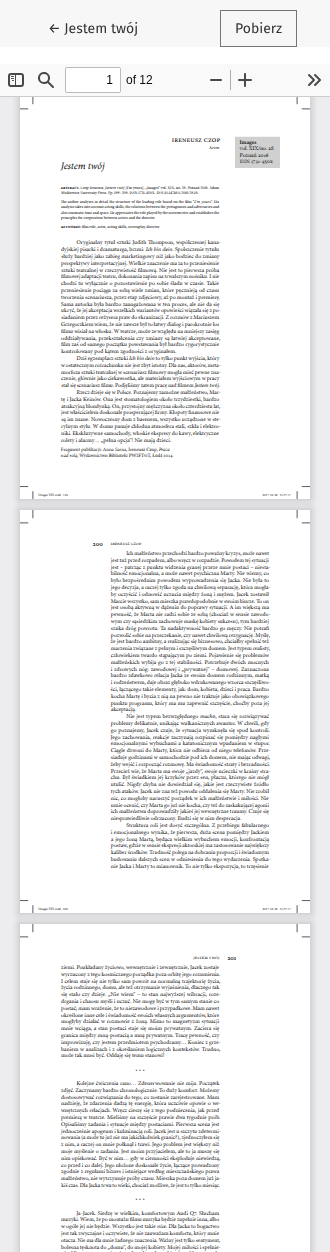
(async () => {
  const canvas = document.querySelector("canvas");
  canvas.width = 330;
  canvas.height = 1252;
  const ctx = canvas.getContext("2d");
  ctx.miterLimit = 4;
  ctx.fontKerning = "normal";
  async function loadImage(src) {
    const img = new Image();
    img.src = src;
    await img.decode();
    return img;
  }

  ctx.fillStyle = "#ffffff";
  ctx.fillRect(0, 0, 330, 1252);
  ctx.fillStyle = "#f7f7f7";
  ctx.fillRect(0, 0, 330, 47);
  ctx.strokeStyle = "#757575";
  ctx.strokeRect(220.5, 10.5, 76, 36);
  ctx.drawImage(await loadImage("img/1.png"), 0, 64, 330, 1188);
  ctx.font = "14px Fira Sans";
  ctx.fillStyle = "#333333";
  ctx.fillText("← Jestem twój", 48, 33);
  ctx.fillText("Pobierz", 235, 33);
})();
